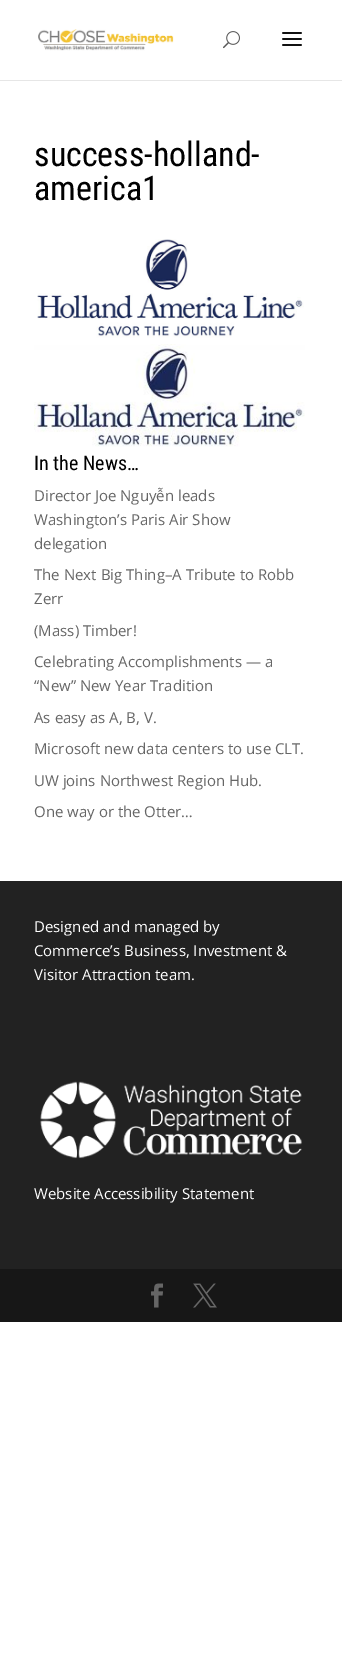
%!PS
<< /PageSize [342 1665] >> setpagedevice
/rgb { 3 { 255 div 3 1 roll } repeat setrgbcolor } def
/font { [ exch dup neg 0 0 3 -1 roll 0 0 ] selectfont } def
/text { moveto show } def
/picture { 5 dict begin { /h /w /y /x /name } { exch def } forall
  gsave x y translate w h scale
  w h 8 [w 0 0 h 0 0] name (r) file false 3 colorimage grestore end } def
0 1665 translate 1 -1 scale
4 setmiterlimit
255 255 255 rgb
0 0 342 1665 rectfill
230 230 230 rgb
0 80 342 1 rectfill
(img_01.rgb) 38 29 136 22 picture
(img_02.rgb) 223 31 17 18 picture
(img_03.rgb) 282 32 20 14 picture
(img_04.rgb) 37 239 267 99 picture
(img_05.rgb) 34 344 271 103 picture
34 34 34 rgb
0 881 342 388 rectfill
(img_06.rgb) 40 1081 262 78 picture
23 23 23 rgb
0 1269 342 53 rectfill
(img_07.rgb) 151 1283 12 25 picture
(img_08.rgb) 193 1283 24 25 picture
/RobotoCondensed-Regular 34 font
0 0 0 rgb
(success-holland-) 34 166 text
(america1) 34 200 text
/RobotoCondensed-Regular 20 font
(In the News…) 34 470 text
/OpenSans-Regular 15 font
102 102 102 rgb
(Director Joe Nguyễn leads) 34 501 text
(Washington’s Paris Air Show) 34 525 text
(delegation) 34 549 text
(The Next Big Thing–A Tribute to Robb) 34 580 text
(Zerr) 34 604 text
(\(Mass\) Timber!) 34 636 text
(Celebrating Accomplishments — a) 34 667 text
(“New” New Year Tradition) 34 691 text
(As easy as A, B, V.) 34 723 text
(Microsoft new data centers to use CLT.) 34 754 text
(UW joins Northwest Region Hub.) 34 786 text
(One way or the Otter…) 34 817 text
255 255 255 rgb
(Designed and managed by) 34 932 text
(Commerce’s Business, Investment &) 34 956 text
(Visitor Attraction team.) 34 980 text
(Website Accessibility Statement) 34 1199 text
showpage
